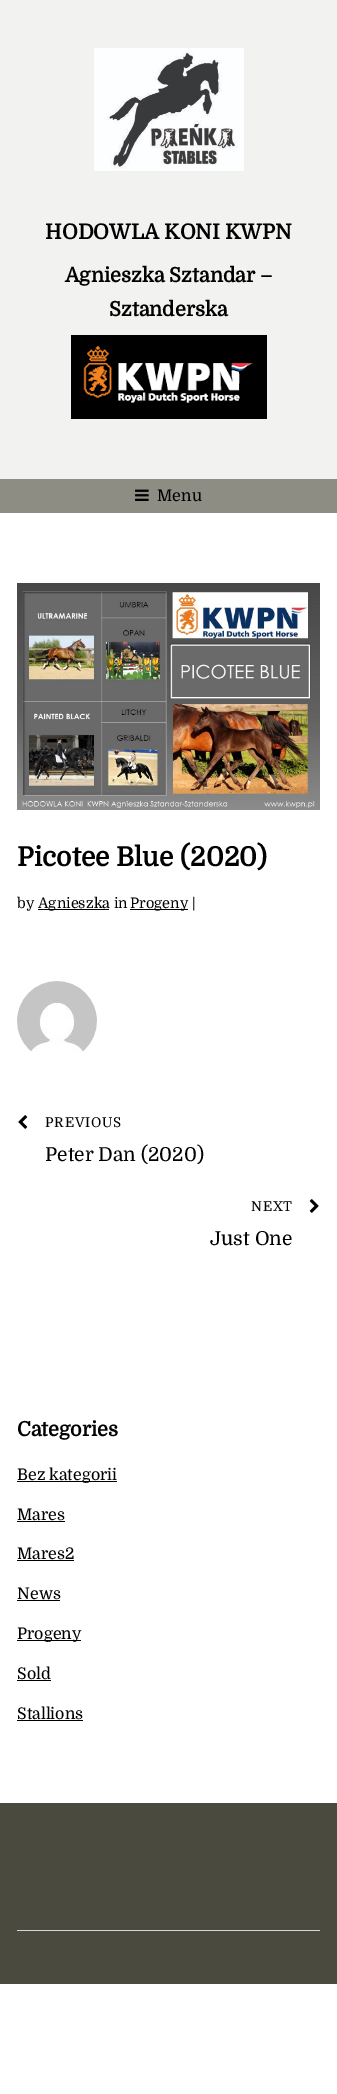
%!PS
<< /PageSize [337 2094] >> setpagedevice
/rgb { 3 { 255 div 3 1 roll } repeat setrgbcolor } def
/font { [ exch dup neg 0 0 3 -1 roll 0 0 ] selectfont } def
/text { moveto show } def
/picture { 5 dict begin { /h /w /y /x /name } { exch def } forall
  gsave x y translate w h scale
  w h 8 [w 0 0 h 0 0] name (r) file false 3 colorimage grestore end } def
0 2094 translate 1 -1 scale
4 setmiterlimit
255 255 255 rgb
0 0 337 2094 rectfill
242 242 241 rgb
0 0 337 479 rectfill
(img_01.rgb) 94 48 150 123 picture
(img_02.rgb) 71 335 196 84 picture
141 141 132 rgb
0 479 337 34 rectfill
(img_03.rgb) 135 489 14 12 picture
(img_04.rgb) 17 583 303 227 picture
0 0 0 rgb
38 909 71 1 rectfill
130 909 58 1 rectfill
(img_05.rgb) 17 981 80 71 picture
(img_06.rgb) 18 1115 10 14 picture
(img_07.rgb) 309 1199 10 14 picture
17 1481 100 1 rectfill
17 1521 48 1 rectfill
17 1560 57 1 rectfill
17 1600 43 1 rectfill
17 1640 64 1 rectfill
17 1680 34 1 rectfill
17 1720 66 1 rectfill
74 74 62 rgb
0 1803 337 181 rectfill
214 214 214 rgb
17 1930 303 1 rectfill
/Domine-Bold 20.75 font
0 0 0 rgb
(HODOWLA KONI KWPN) 45 239 text
/Domine-Bold 20 font
(Agnieszka Sztandar –) 65 282 text
(Sztanderska) 109 316 text
/Domine-Regular 16 font
(Menu) 157 501 text
/Domine-Bold 26.5 font
(Picotee Blue \(2020\)) 17 866 text
/Domine-Regular 14.5 font
(by) 17 908 text
(Agnieszka in) 38 908 text
(Progeny |) 130 908 text
/Domine-Regular 13.5 font
45 1127 moveto 0.75 0 (PREVIOUS) ashow
/Domine-Regular 19.25 font
(Peter Dan \(2020\)) 45 1161 text
/Domine-Regular 13.5 font
251 1211 moveto 0.75 0 (NEXT) ashow
/Domine-Regular 19.25 font
(Just One) 210 1245 text
/Domine-Bold 20 font
(Categories) 17 1436 text
/Domine-Regular 16 font
(Bez kategorii) 17 1480 text
(Mares) 17 1520 text
(Mares2) 17 1559 text
(News) 17 1599 text
(Progeny) 17 1639 text
(Sold) 17 1679 text
(Stallions) 17 1719 text
showpage
